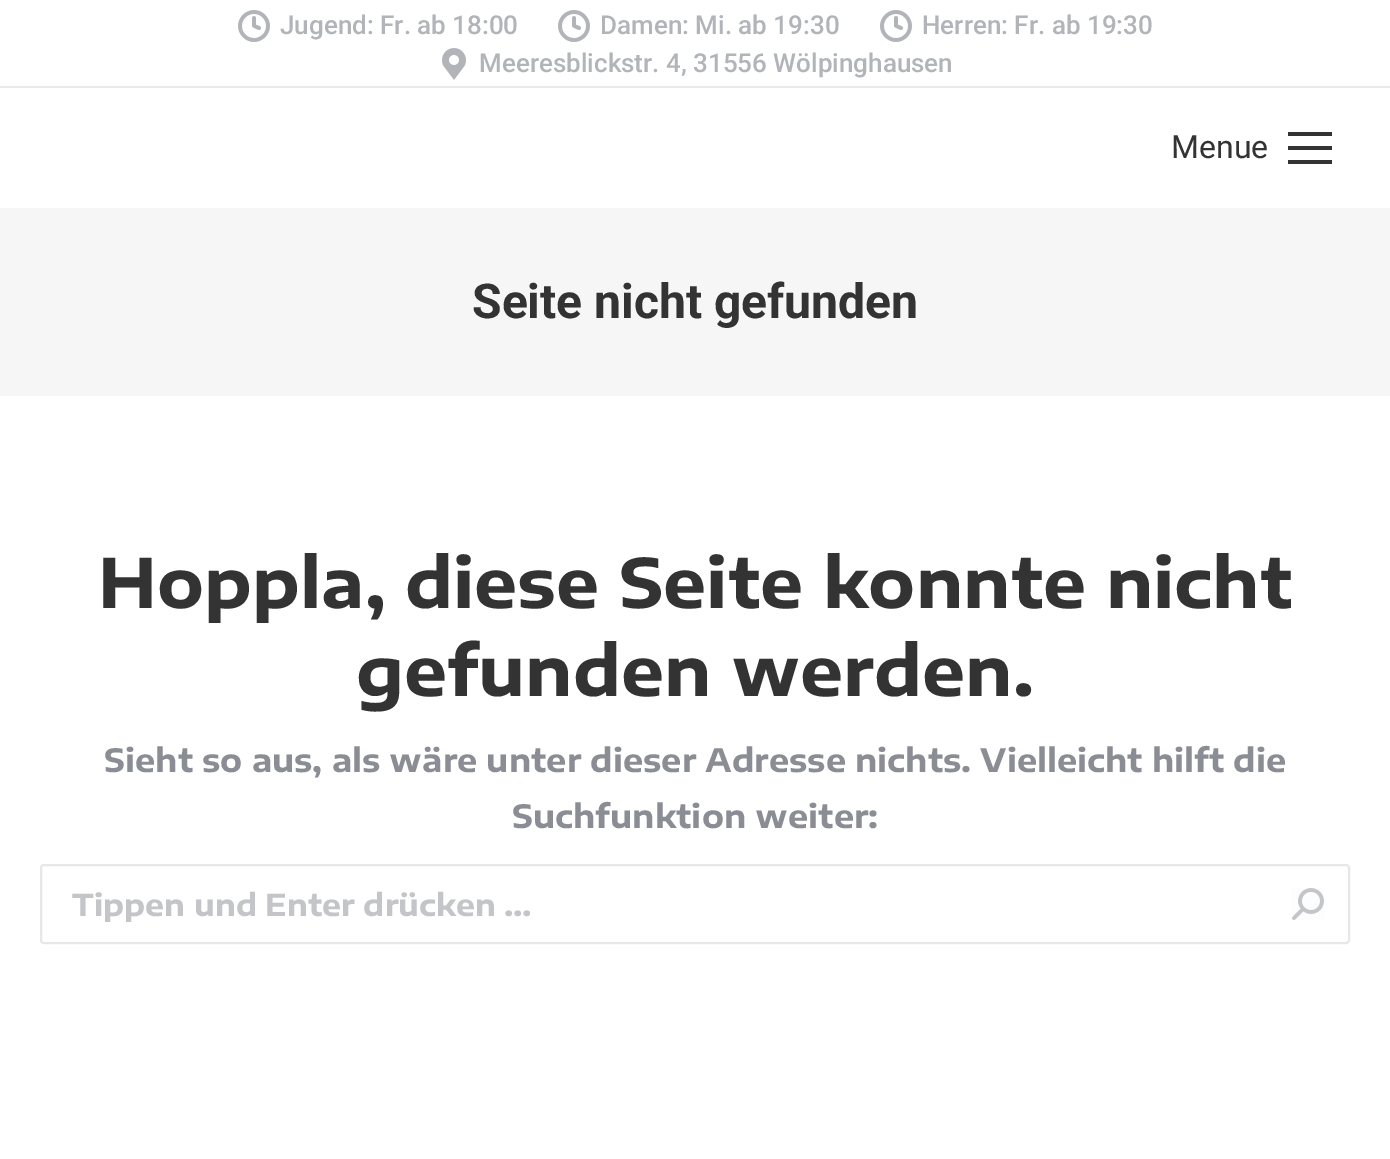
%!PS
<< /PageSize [1390 1159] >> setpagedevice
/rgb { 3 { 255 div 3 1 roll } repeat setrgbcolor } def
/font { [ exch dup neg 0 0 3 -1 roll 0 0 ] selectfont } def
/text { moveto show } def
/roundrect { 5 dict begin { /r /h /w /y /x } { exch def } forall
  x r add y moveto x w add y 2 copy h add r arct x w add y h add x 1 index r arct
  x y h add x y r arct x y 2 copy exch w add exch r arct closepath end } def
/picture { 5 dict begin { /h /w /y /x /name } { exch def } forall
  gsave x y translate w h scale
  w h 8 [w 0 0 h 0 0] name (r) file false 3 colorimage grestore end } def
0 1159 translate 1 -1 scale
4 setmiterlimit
255 255 255 rgb
0 0 1390 1159 rectfill
(img_01.rgb) 238 10 32 32 picture
(img_01.rgb) 558 10 32 32 picture
(img_01.rgb) 880 10 32 32 picture
(img_02.rgb) 442 48 24 32 picture
233 233 233 rgb
0 86 1390 2 rectfill
51 51 51 rgb
1288 132 44 4 rectfill
1288 146 44 4 rectfill
1288 160 44 4 rectfill
246 246 246 rgb
0 208 1390 188 rectfill
231 231 231 rgb
2 setlinewidth
41 865 1308 78 3 roundrect stroke
(img_03.rgb) 1292 888 32 32 picture
/Roboto-Medium 26 font
177 180 184 rgb
(Jugend: Fr. ab 18:00) 280 34 text
(Damen: Mi. ab 19:30) 600 34 text
(Herren: Fr. ab 19:30) 922 34 text
(Meeresblickstr. 4, 31556 Wölpinghausen) 479 72 text
/Roboto-Regular 32 font
51 51 51 rgb
(Menue) 1171 158 text
/Roboto-Bold 48 font
(Seite nicht gefunden) 472 318 text
/EncodeSansExpanded-Bold 68 font
(Hoppla, diese Seite konnte nicht) 98 608 text
(gefunden werden.) 356 696 text
/EncodeSansExpanded-Bold 32 font
139 141 148 rgb
(Sieht so aus, als wäre unter dieser Adresse nichts. Vielleicht hilft die) 104 772 text
(Suchfunktion weiter:) 512 828 text
gsave
72 886 1216 36 rectclip
/EncodeSansExpanded-Bold 30 font
196 197 201 rgb
(Tippen und Enter drücken …) 72 916 text
grestore
showpage
